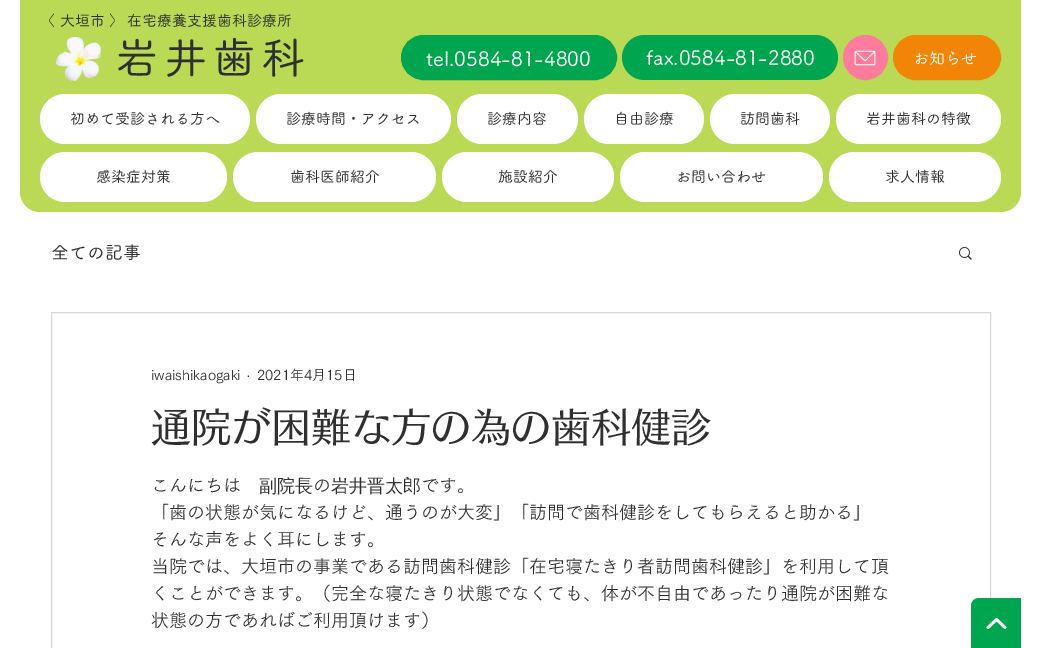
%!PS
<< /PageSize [1041 648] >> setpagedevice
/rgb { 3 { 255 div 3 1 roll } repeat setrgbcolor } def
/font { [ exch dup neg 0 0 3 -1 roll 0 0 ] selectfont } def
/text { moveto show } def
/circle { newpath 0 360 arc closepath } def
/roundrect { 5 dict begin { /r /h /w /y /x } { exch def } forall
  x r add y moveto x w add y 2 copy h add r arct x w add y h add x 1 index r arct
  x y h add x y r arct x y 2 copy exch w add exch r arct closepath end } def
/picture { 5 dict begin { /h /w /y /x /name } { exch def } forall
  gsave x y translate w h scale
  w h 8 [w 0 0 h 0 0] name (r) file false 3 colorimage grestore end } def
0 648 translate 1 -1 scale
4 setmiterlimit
255 255 255 rgb
0 0 1041 648 rectfill
186 218 85 rgb
20 0 1001 94 rectfill
(img_01.rgb) 56 37 45 44 picture
0 165 80 rgb
401.5 35.5 215 44 22 roundrect gsave fill grestore
stroke
622 35 216 45 22.5 roundrect fill
255 123 156 rgb
865.5 57.5 22 circle gsave fill grestore
stroke
(img_02.rgb) 854 50 22 16 picture
242 132 7 rgb
893.5 35.5 107 44 22 roundrect gsave fill grestore
stroke
186 218 85 rgb
20 94 moveto 1001 0 rlineto 0 98 rlineto 0 11 -9 20 -20 20 rcurveto -961 0 rlineto -11 0 -20 -9 -20 -20 rcurveto closepath fill
255 255 255 rgb
40 94 210 50 25 roundrect fill
256 94 195 50 25 roundrect fill
457 94 121 50 25 roundrect fill
584 94 120 50 25 roundrect fill
710 94 120 50 25 roundrect fill
836 94 165 50 25 roundrect fill
40 152 187 50 25 roundrect fill
233 152 203 50 25 roundrect fill
442 152 172 50 25 roundrect fill
620 152 203 50 25 roundrect fill
829 152 172 50 25 roundrect fill
(img_03.rgb) 959 247 13 13 picture
216 216 216 rgb
51.5 312.5 939 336 rectstroke
0 165 80 rgb
979 598 moveto 42 0 rlineto 0 50 rlineto -50 0 rlineto 0 -42 rlineto 0 -4.5 3.5 -8 8 -8 rcurveto closepath fill
(img_04.rgb) 986 617 21 12 picture
/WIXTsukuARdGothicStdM-Medium 15 font
47 47 47 rgb
(〈 大垣市 〉) 40 26 text
(在宅療養支援歯科診療所) 127 26 text
/WIXTsukuARdGothicStdM-Medium 44 font
115 74 moveto 4.5 0 (岩井歯) ashow
(科) 261 74 text
/WIXTsukuARdGothicStdM-Medium 20 font
255 255 255 rgb
(tel.0584-81-4800) 426 66 text
(fax.0584-81-2880) 646 65 text
/WIXTsukuARdGothicStdM-Medium 16 font
(お知らせ) 913 64 text
/WIXTsukuARdGothicStdM-Medium 15 font
47 47 47 rgb
(初めて受診される方へ) 70 124 text
(診療時間・アクセス) 286 124 text
(診療内容) 487 124 text
(自由診療) 614 124 text
(訪問歯科) 740 124 text
(岩井歯科の特徴) 866 124 text
(感染症対策) 96 182 text
(歯科医師紹介) 290 182 text
(施設紹介) 498 182 text
(お問い合わせ) 676 182 text
(求人情報) 885 182 text
/WIXTsukuARdGothicStdM-Medium 18 font
(全ての記事) 51 259 text
/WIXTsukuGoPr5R-Regular 14 font
(iwaishikaogaki) 151 380 text
/LiberationSans-Regular 14 font
(·) 246 380 text
/WIXTsukuGoPr5R-Regular 14 font
(2021年4月15日) 257 380 text
/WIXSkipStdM-Medium 40 font
(通院が困難な方の為の歯科健診) 151 442 text
/WIXTsukuGoPr5R-Regular 18 font
(こんにちは) 151 492 text
/WenQuanYiZenHei-Medium 18 font
(副院長) 259 492 text
/WIXTsukuGoPr5R-Regular 18 font
(の) 313 492 text
/WenQuanYiZenHei-Medium 18 font
(岩井晋太郎) 331 492 text
/WIXTsukuGoPr5R-Regular 18 font
(です。) 421 492 text
(「歯の状態が気になるけど、通うのが大変」「訪問で歯科健診をしてもらえると助かる」) 151 519 text
(そんな声をよく耳にします。) 151 546 text
(当院では、大垣市の事業である訪問歯科健診「在宅寝たきり者訪問歯科健診」を利用して頂) 151 573 text
(くことができます。（完全な寝たきり状態でなくても、体が不自由であったり通院が困難な) 151 600 text
(状態の方であればご利用頂けます）) 151 627 text
showpage
